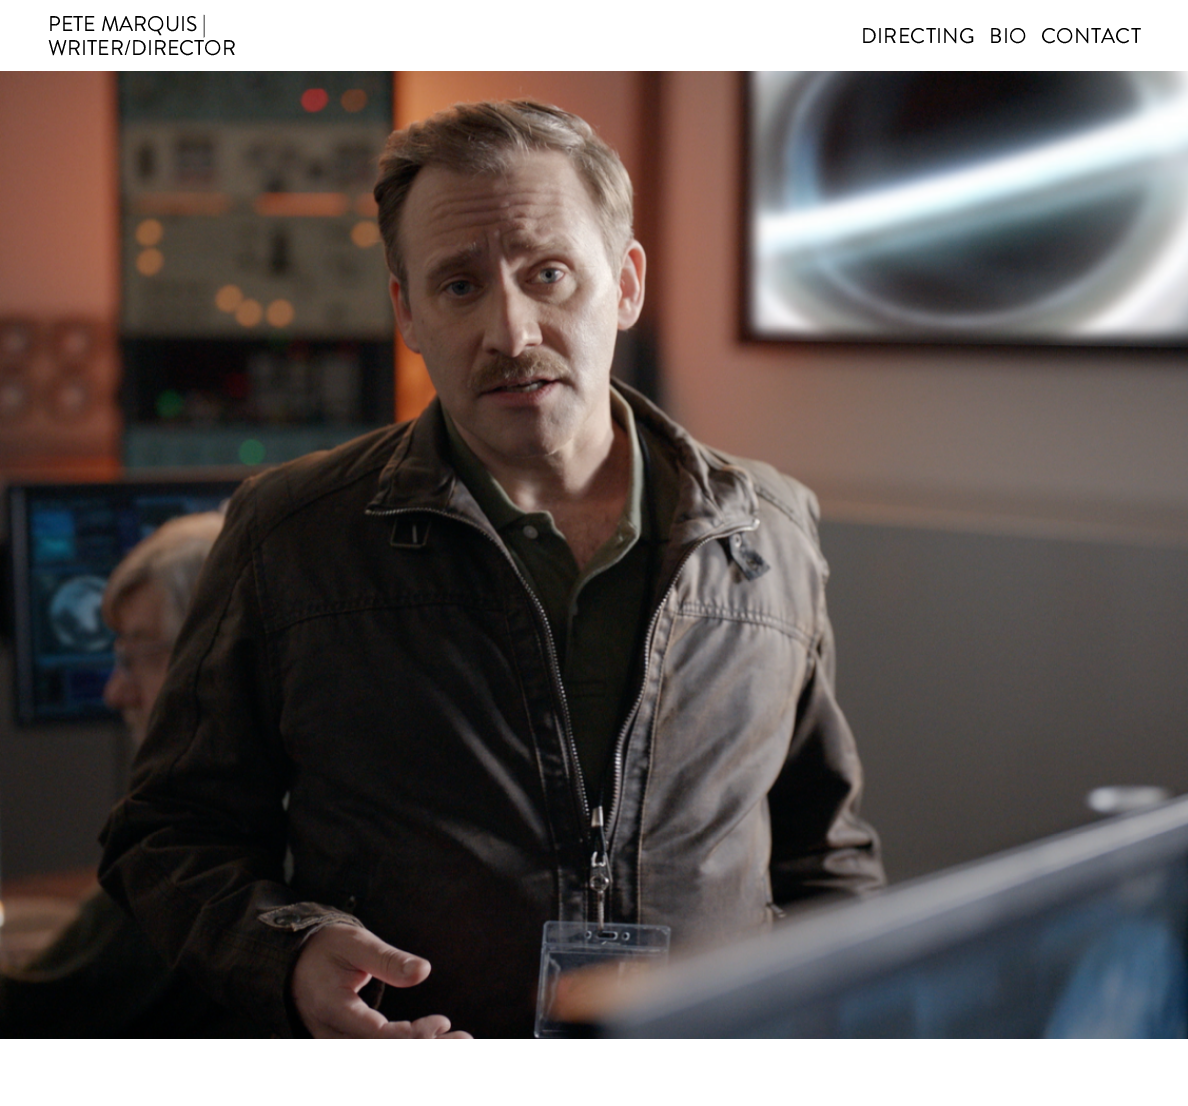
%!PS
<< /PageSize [1188 1106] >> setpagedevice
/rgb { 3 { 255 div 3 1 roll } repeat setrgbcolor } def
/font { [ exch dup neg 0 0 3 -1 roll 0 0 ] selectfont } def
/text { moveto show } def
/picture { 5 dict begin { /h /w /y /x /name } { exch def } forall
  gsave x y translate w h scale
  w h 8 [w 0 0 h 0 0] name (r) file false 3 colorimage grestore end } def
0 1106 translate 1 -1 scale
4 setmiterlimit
255 255 255 rgb
0 0 1188 1106 rectfill
(img_01.rgb) 0 71 1188 968 picture
/BrandonGrotesque-Regular 21.25 font
0 0 0 rgb
(PETE MARQUIS |) 48 31 text
(WRITER/DIRECTOR) 48 55 text
861 43 moveto 0.25 0 (DIRECTING) ashow
989 43 moveto 0.25 0 (BIO) ashow
1041 43 moveto 0.25 0 (CONTACT) ashow
showpage
